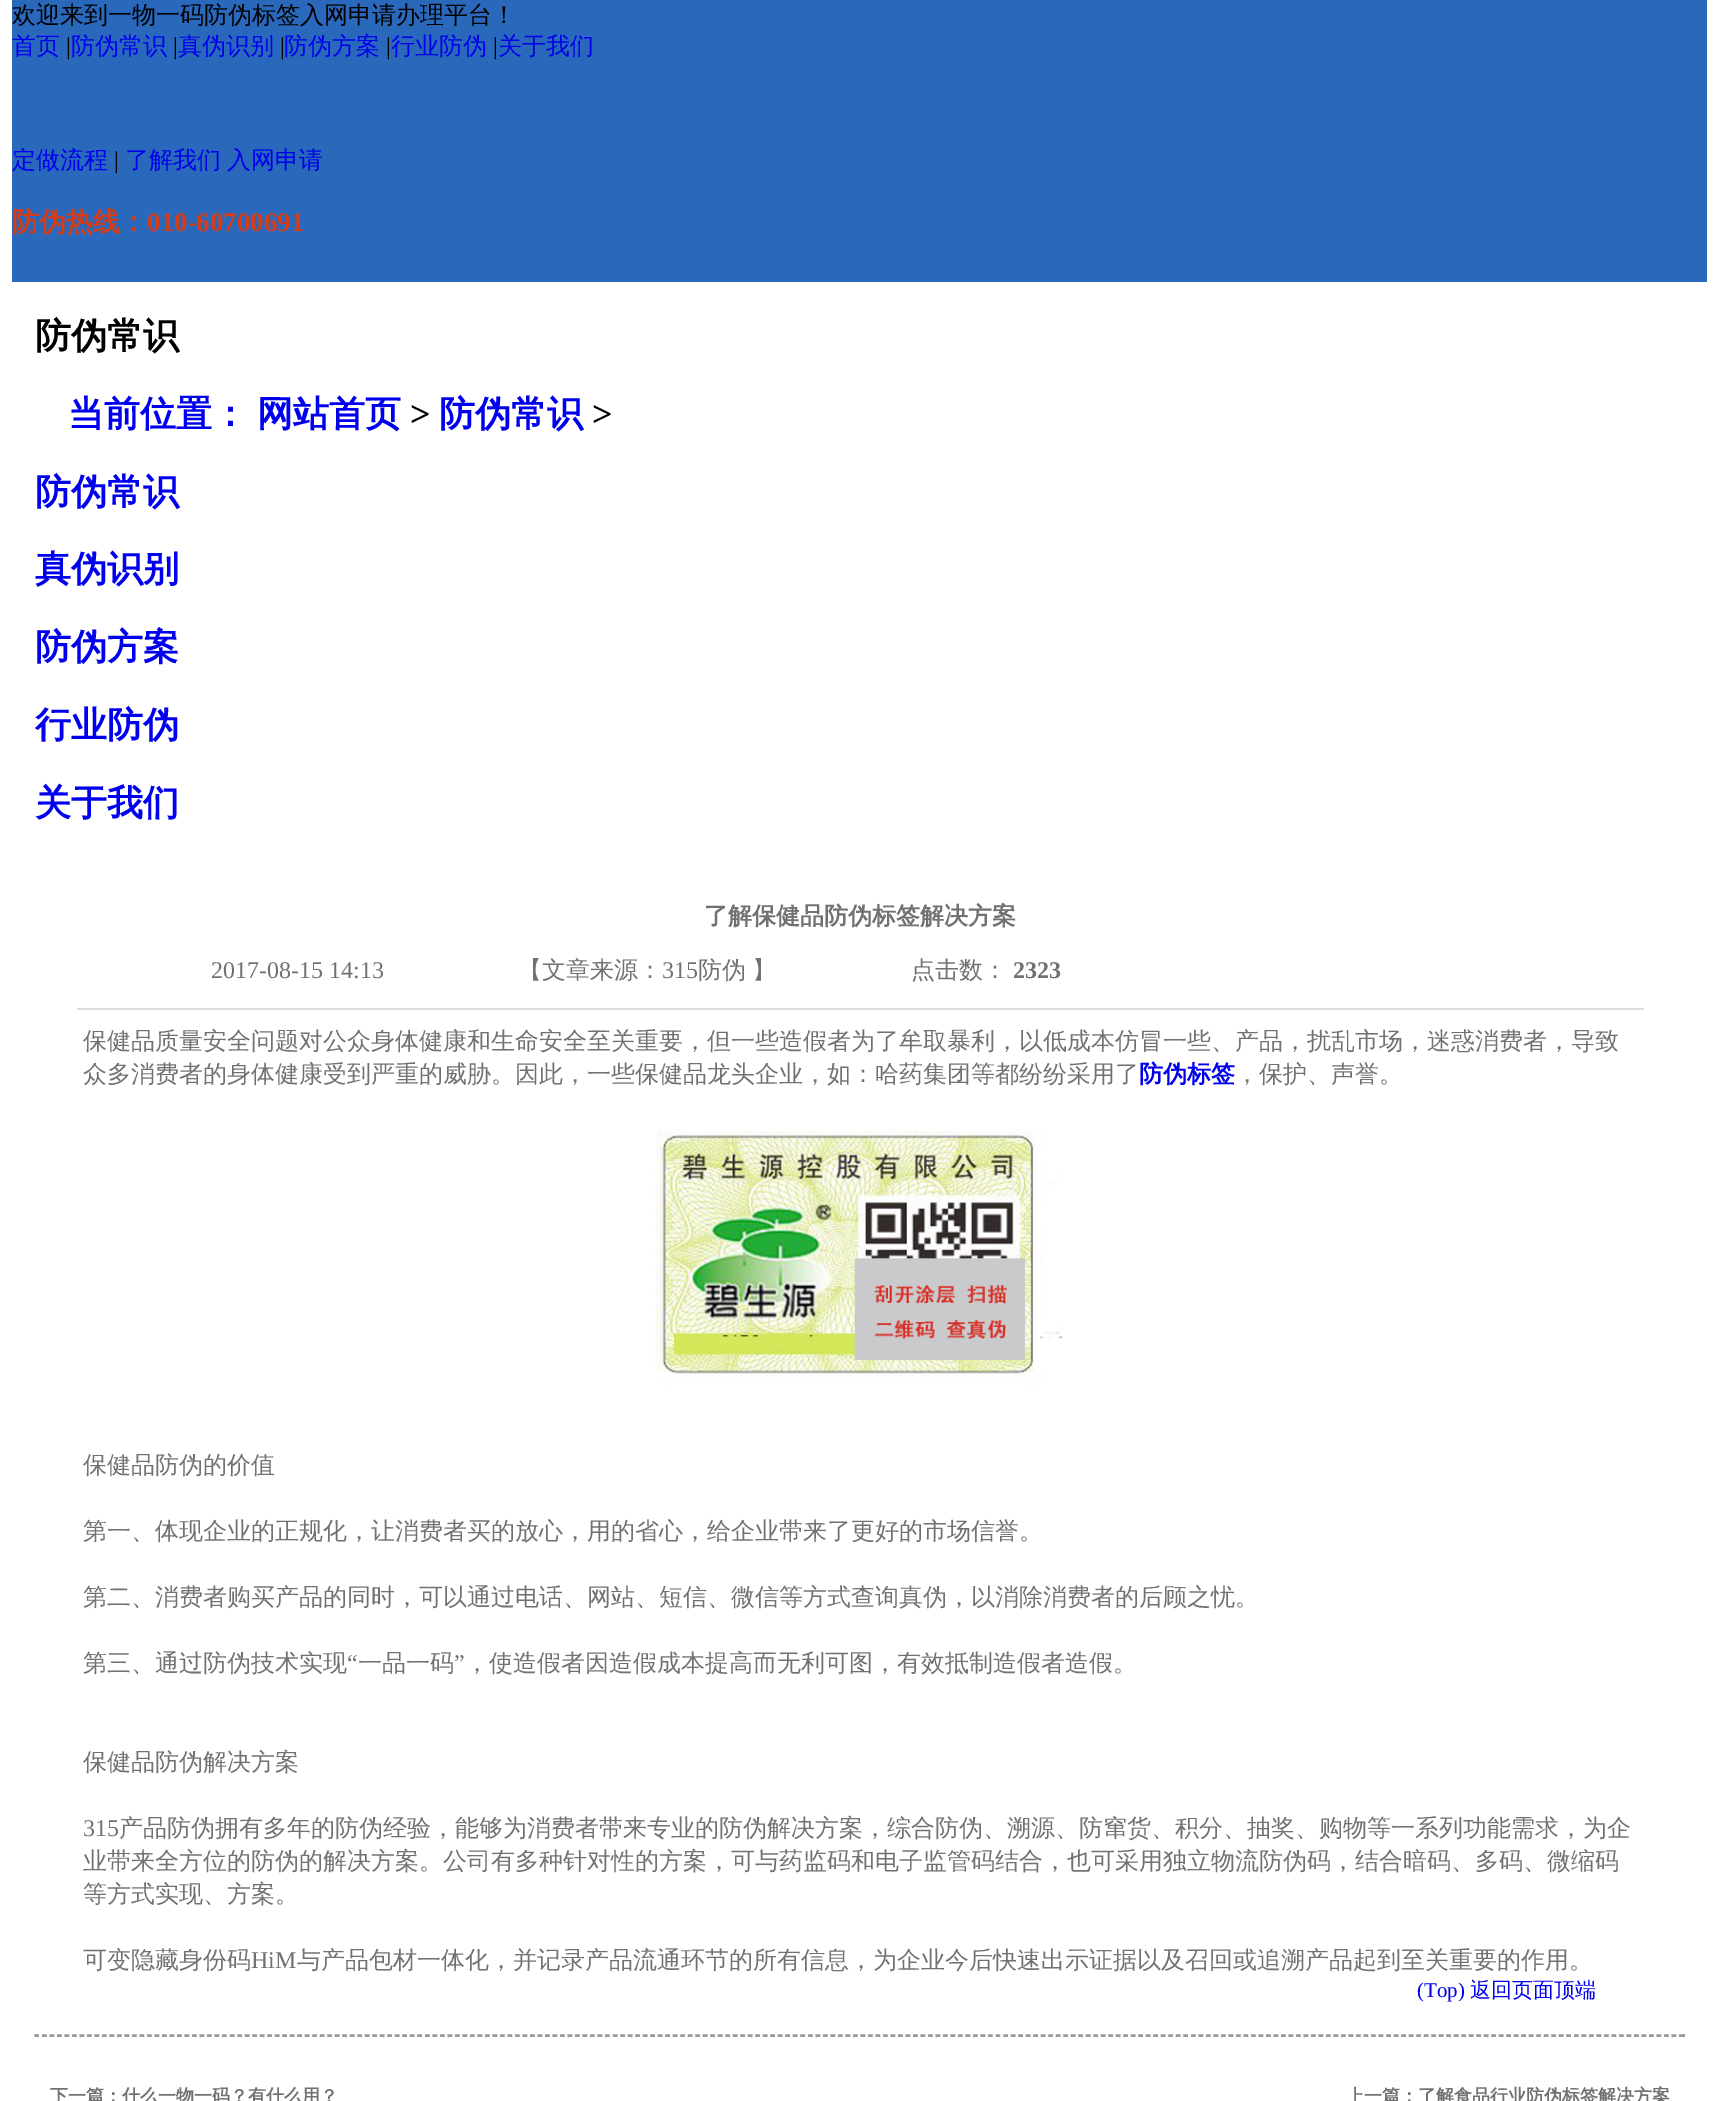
%!PS
<< /PageSize [1718 2101] >> setpagedevice
/rgb { 3 { 255 div 3 1 roll } repeat setrgbcolor } def
/font { [ exch dup neg 0 0 3 -1 roll 0 0 ] selectfont } def
/text { moveto show } def
/picture { 5 dict begin { /h /w /y /x /name } { exch def } forall
  gsave x y translate w h scale
  w h 8 [w 0 0 h 0 0] name (r) file false 3 colorimage grestore end } def
0 2101 translate 1 -1 scale
4 setmiterlimit
255 255 255 rgb
0 0 1718 2101 rectfill
42 104 187 rgb
12 0 1695 282 rectfill
221 221 221 rgb
77 1008 1567 2 rectfill
(img_01.rgb) 655 1128 408 257 picture
153 153 153 rgb
1.5 setlinewidth
[4.5 3.01] 0 setdash
34.5 2035 moveto 1650 0 rlineto stroke
1683 2034 2 3 rectfill
34.5 2036 moveto 1650 0 rlineto stroke
35 2034 2 3 rectfill
/WenQuanYiZenHei-Medium 24 font
0 0 0 rgb
(欢迎来到一物一码防伪标签入网申请办理平台！) 12 23 text
0 0 238 rgb
(首页) 12 54 text
/LiberationSerif-Regular 24 font
0 0 0 rgb
(|) 66 54 text
/WenQuanYiZenHei-Medium 24 font
0 0 238 rgb
(防伪常识) 71 54 text
/LiberationSerif-Regular 24 font
0 0 0 rgb
(|) 173 54 text
/WenQuanYiZenHei-Medium 24 font
0 0 238 rgb
(真伪识别) 178 54 text
/LiberationSerif-Regular 24 font
0 0 0 rgb
(|) 280 54 text
/WenQuanYiZenHei-Medium 24 font
0 0 238 rgb
(防伪方案) 284 54 text
/LiberationSerif-Regular 24 font
0 0 0 rgb
(|) 386 54 text
/WenQuanYiZenHei-Medium 24 font
0 0 238 rgb
(行业防伪) 391 54 text
/LiberationSerif-Regular 24 font
0 0 0 rgb
(|) 493 54 text
/WenQuanYiZenHei-Medium 24 font
0 0 238 rgb
(关于我们) 498 54 text
(定做流程) 12 168 text
/LiberationSerif-Regular 24 font
0 0 0 rgb
(|) 114 168 text
/WenQuanYiZenHei-Medium 24 font
0 0 238 rgb
(了解我们) 125 168 text
(入网申请) 227 168 text
/WenQuanYiZenHei-Bold 27 font
216 60 20 rgb
(防伪热线：) 12 231 text
/LiberationSerif-Bold 27 font
(010-60700691) 147 231 text
/WenQuanYiZenHei-Bold 36 font
0 0 0 rgb
(防伪常识) 35 348 text
0 0 238 rgb
(当前位置：) 68 426 text
(网站首页) 257 426 text
/LiberationSerif-Bold 36 font
0 0 0 rgb
(>) 410 426 text
/WenQuanYiZenHei-Bold 36 font
0 0 238 rgb
(防伪常识) 439 426 text
/LiberationSerif-Bold 36 font
0 0 0 rgb
(>) 592 426 text
/WenQuanYiZenHei-Bold 36 font
0 0 238 rgb
(防伪常识) 35 504 text
(真伪识别) 35 581 text
(防伪方案) 35 659 text
(行业防伪) 35 737 text
(关于我们) 35 815 text
/WenQuanYiZenHei-Bold 24 font
113 113 113 rgb
(了解保健品防伪标签解决方案) 704 924 text
/LiberationSerif-Regular 24 font
(2017-08-15 14:13) 211 978 text
/WenQuanYiZenHei-Medium 24 font
(【文章来源：) 518 978 text
/LiberationSerif-Regular 24 font
(315) 662 978 text
/WenQuanYiZenHei-Medium 24 font
(防伪) 698 978 text
(】) 752 978 text
(点击数：) 911 978 text
/LiberationSerif-Bold 24 font
(2323) 1013 978 text
/WenQuanYiZenHei-Medium 24 font
(保健品质量安全问题对公众身体健康和生命安全至关重要，但一些造假者为了牟取暴利，以低成本仿冒一些、产品，扰乱市场，迷惑消费者，导致) 83 1049 text
(众多消费者的身体健康受到严重的威胁。因此，一些保健品龙头企业，如：哈药集团等都纷纷采用了) 83 1082 text
/WenQuanYiZenHei-Bold 24 font
0 0 238 rgb
(防伪标签) 1139 1082 text
/WenQuanYiZenHei-Medium 24 font
113 113 113 rgb
(，保护、声誉。) 1235 1082 text
(保健品防伪的价值) 83 1473 text
(第一、体现企业的正规化，让消费者买的放心，用的省心，给企业带来了更好的市场信誉。) 83 1539 text
(第二、消费者购买产品的同时，可以通过电话、网站、短信、微信等方式查询真伪，以消除消费者的后顾之忧。) 83 1605 text
(第三、通过防伪技术实现) 83 1671 text
/LiberationSerif-Regular 24 font
(“) 347 1671 text
/WenQuanYiZenHei-Medium 24 font
(一品一码) 358 1671 text
/LiberationSerif-Regular 24 font
(”) 454 1671 text
/WenQuanYiZenHei-Medium 24 font
(，使造假者因造假成本提高而无利可图，有效抵制造假者造假。) 465 1671 text
(保健品防伪解决方案) 83 1770 text
/LiberationSerif-Regular 24 font
(315) 83 1836 text
/WenQuanYiZenHei-Medium 24 font
(产品防伪拥有多年的防伪经验，能够为消费者带来专业的防伪解决方案，综合防伪、溯源、防窜货、积分、抽奖、购物等一系列功能需求，为企) 119 1836 text
(业带来全方位的防伪的解决方案。公司有多种针对性的方案，可与药监码和电子监管码结合，也可采用独立物流防伪码，结合暗码、多码、微缩码) 83 1869 text
(等方式实现、方案。) 83 1902 text
(可变隐藏身份码) 83 1968 text
/LiberationSerif-Regular 24 font
(HiM) 251 1968 text
/WenQuanYiZenHei-Medium 24 font
(与产品包材一体化，并记录产品流通环节的所有信息，为企业今后快速出示证据以及召回或追溯产品起到至关重要的作用。) 297 1968 text
/LiberationSerif-Regular 21 font
0 0 238 rgb
(\(Top\)) 1417 1997 text
/WenQuanYiZenHei-Medium 21 font
(返回页面顶端) 1470 1997 text
/WenQuanYiZenHei-Bold 18 font
113 113 113 rgb
(下一篇：什么一物一码？有什么用？) 50 2102 text
(上一篇：了解食品行业防伪标签解决方案) 1346 2102 text
showpage
